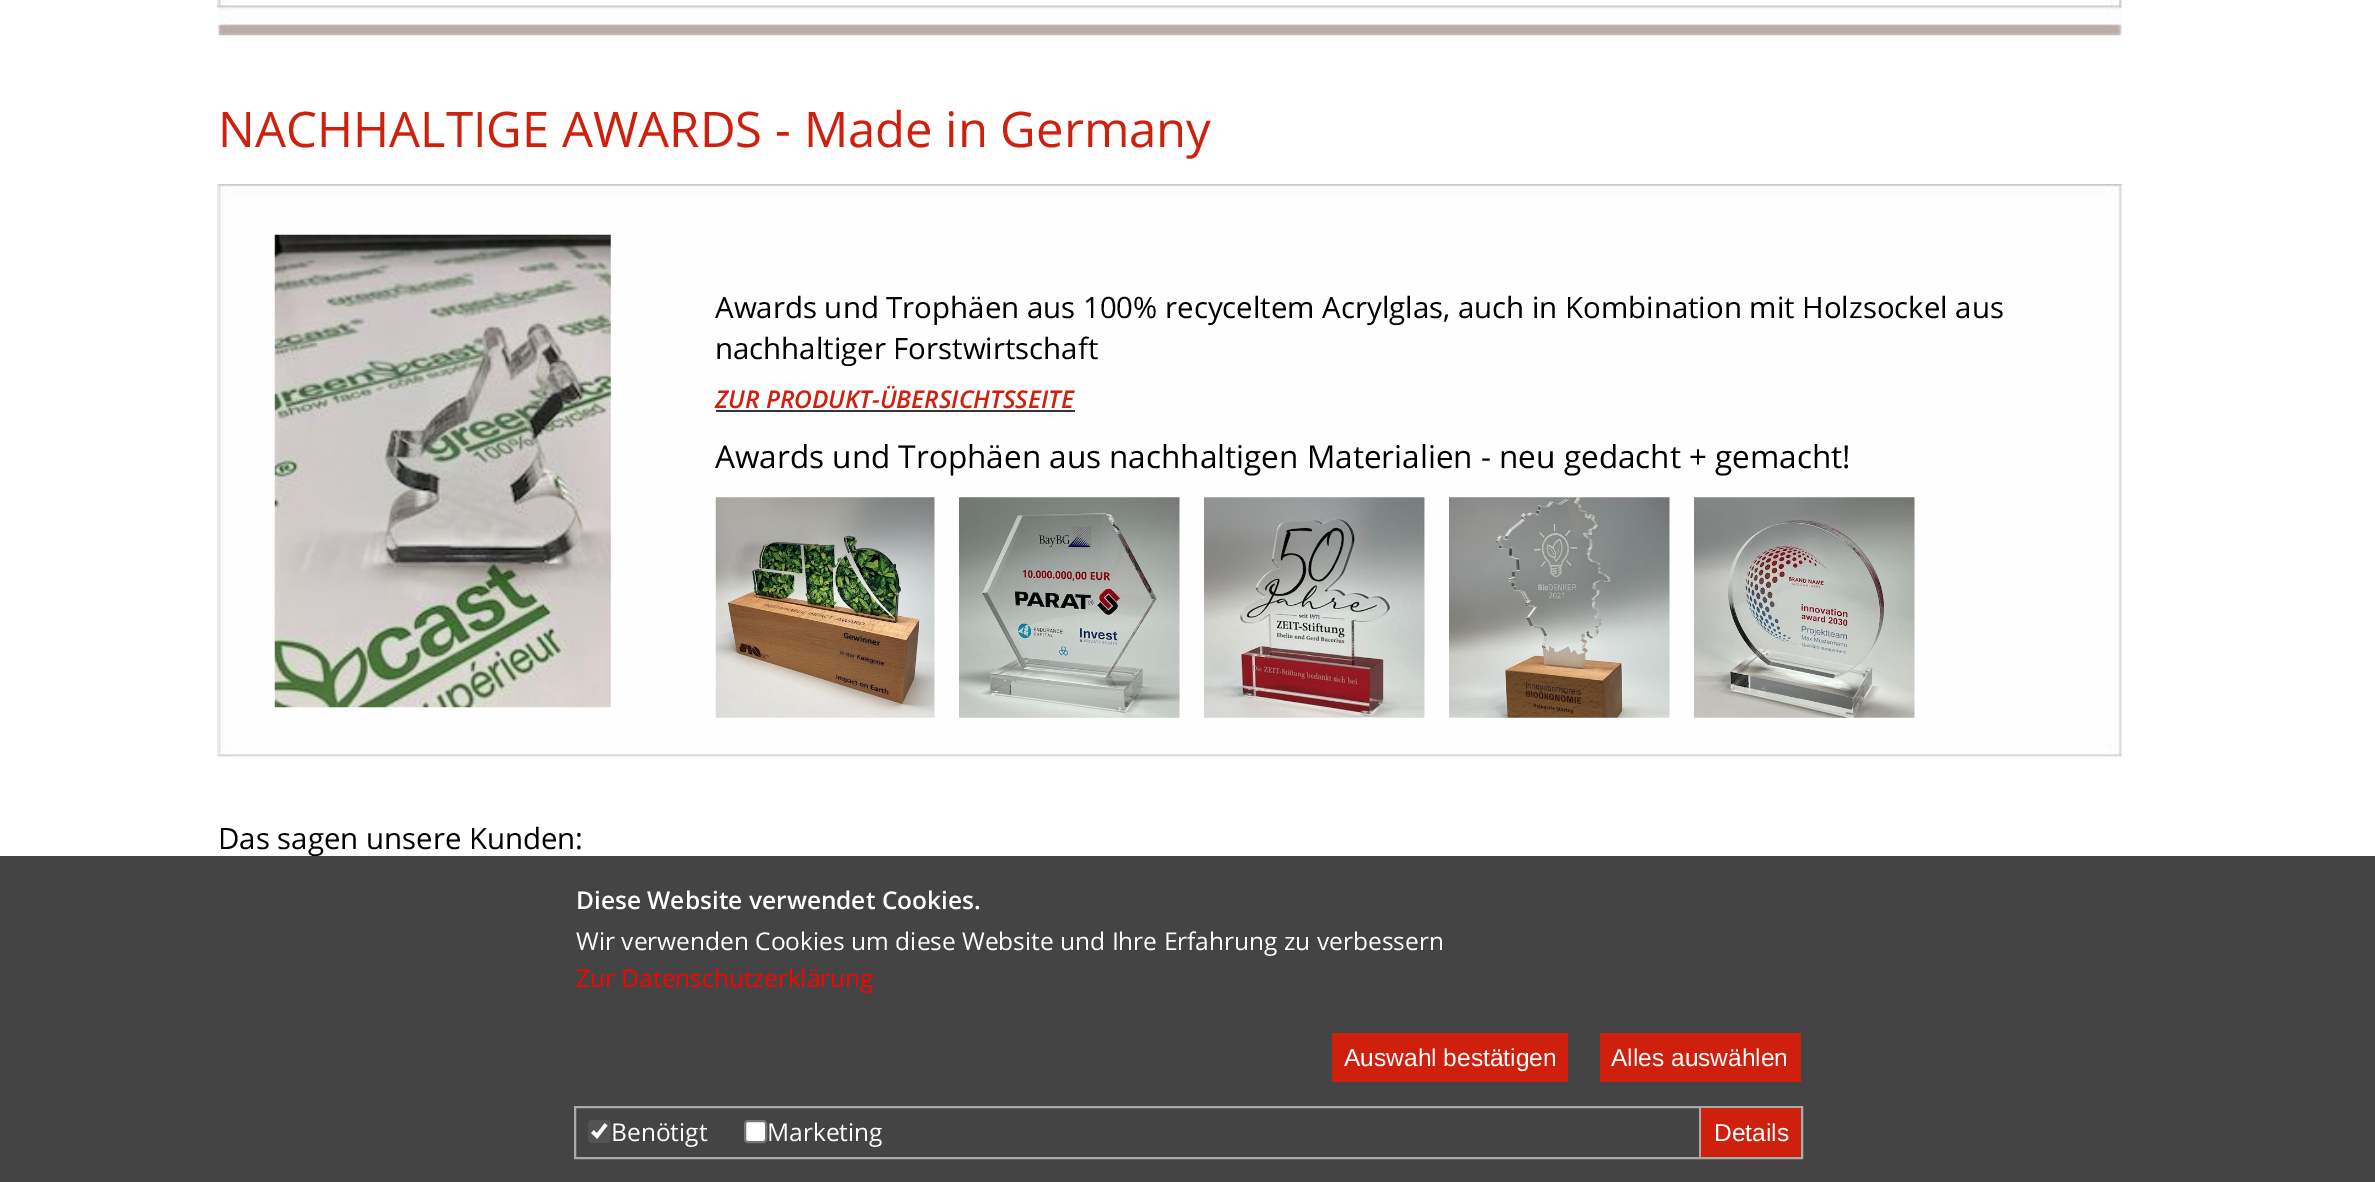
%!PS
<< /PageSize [2375 1182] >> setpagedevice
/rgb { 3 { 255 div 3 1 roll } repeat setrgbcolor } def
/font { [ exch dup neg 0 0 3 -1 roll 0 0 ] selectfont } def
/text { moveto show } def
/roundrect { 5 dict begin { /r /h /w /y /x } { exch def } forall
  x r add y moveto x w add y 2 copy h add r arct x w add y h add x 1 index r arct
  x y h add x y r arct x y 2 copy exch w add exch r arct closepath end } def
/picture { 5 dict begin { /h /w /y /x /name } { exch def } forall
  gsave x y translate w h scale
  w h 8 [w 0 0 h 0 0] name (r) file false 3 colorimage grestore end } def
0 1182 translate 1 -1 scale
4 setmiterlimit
255 255 255 rgb
0 0 2375 1182 rectfill
(img_01.rgb) 217 0 1906 36 picture
(img_02.rgb) 217 184 1906 575 picture
(img_03.rgb) 274 234 337 474 picture
53 53 53 rgb
716 410 359 2 rectfill
(img_04.rgb) 715 497 220 221 picture
(img_05.rgb) 959 497 221 221 picture
(img_06.rgb) 1204 497 221 221 picture
(img_07.rgb) 1449 497 221 221 picture
(img_08.rgb) 1694 497 221 221 picture
/OpenSans-Regular 49 font
207 31 13 rgb
(NACHHALTIGE AWARDS - Made in Germany) 218 147 text
/OpenSans-Regular 29.4 font
0 0 0 rgb
(Awards und Trophäen aus 100% recyceltem Acrylglas, auch in Kombination mit Holzsockel aus) 715 318 text
(nachhaltiger Forstwirtschaft) 715 359 text
/OpenSans-SemiBoldItalic 24.5 font
207 31 13 rgb
(ZUR PRODUKT-ÜBERSICHTSSEITE) 715 408 text
/OpenSans-Regular 31.5 font
0 0 0 rgb
(Awards und Trophäen aus nachhaltigen Materialien - neu gedacht + gemacht!) 715 468 text
/OpenSans-Regular 29.4 font
(Das sagen unsere Kunden:) 218 849 text
68 68 68 rgb
0 856 2375 326 rectfill
/OpenSans-SemiBold 24.5 font
255 255 255 rgb
(Diese Website verwendet Cookies.) 576 909 text
/OpenSans-Regular 24.5 font
(Wir verwenden Cookies um diese Website und Ihre Erfahrung zu verbessern) 576 950 text
255 0 0 rgb
(Zur Datenschutzerklärung) 576 987 text
207 31 13 rgb
1332 1033 236 49 rectfill
/LiberationSans-Regular 24.5 font
255 255 255 rgb
(Auswahl bestätigen) 1344 1066 text
207 31 13 rgb
1600 1033 201 49 rectfill
255 255 255 rgb
(Alles auswählen) 1611 1066 text
170 170 170 rgb
2 setlinewidth
575 1107 1227 51 rectstroke
83 83 83 rgb
588 1120 23 23 4 roundrect fill
255 255 255 rgb
3.6 setlinewidth
592.5 1131.5 moveto 4.5 4.5 rlineto 9 -11.5 rlineto stroke
/OpenSans-Regular 24.5 font
(Benötigt) 611 1141 text
745 1121 21 21 3 roundrect gsave fill grestore
118 118 118 rgb
2 setlinewidth
stroke
255 255 255 rgb
(Marketing) 767 1141 text
207 31 13 rgb
1701 1108 100 49 rectfill
170 170 170 rgb
1699 1108 2 49 rectfill
/LiberationSans-Regular 24.5 font
255 255 255 rgb
(Details) 1714 1141 text
showpage
